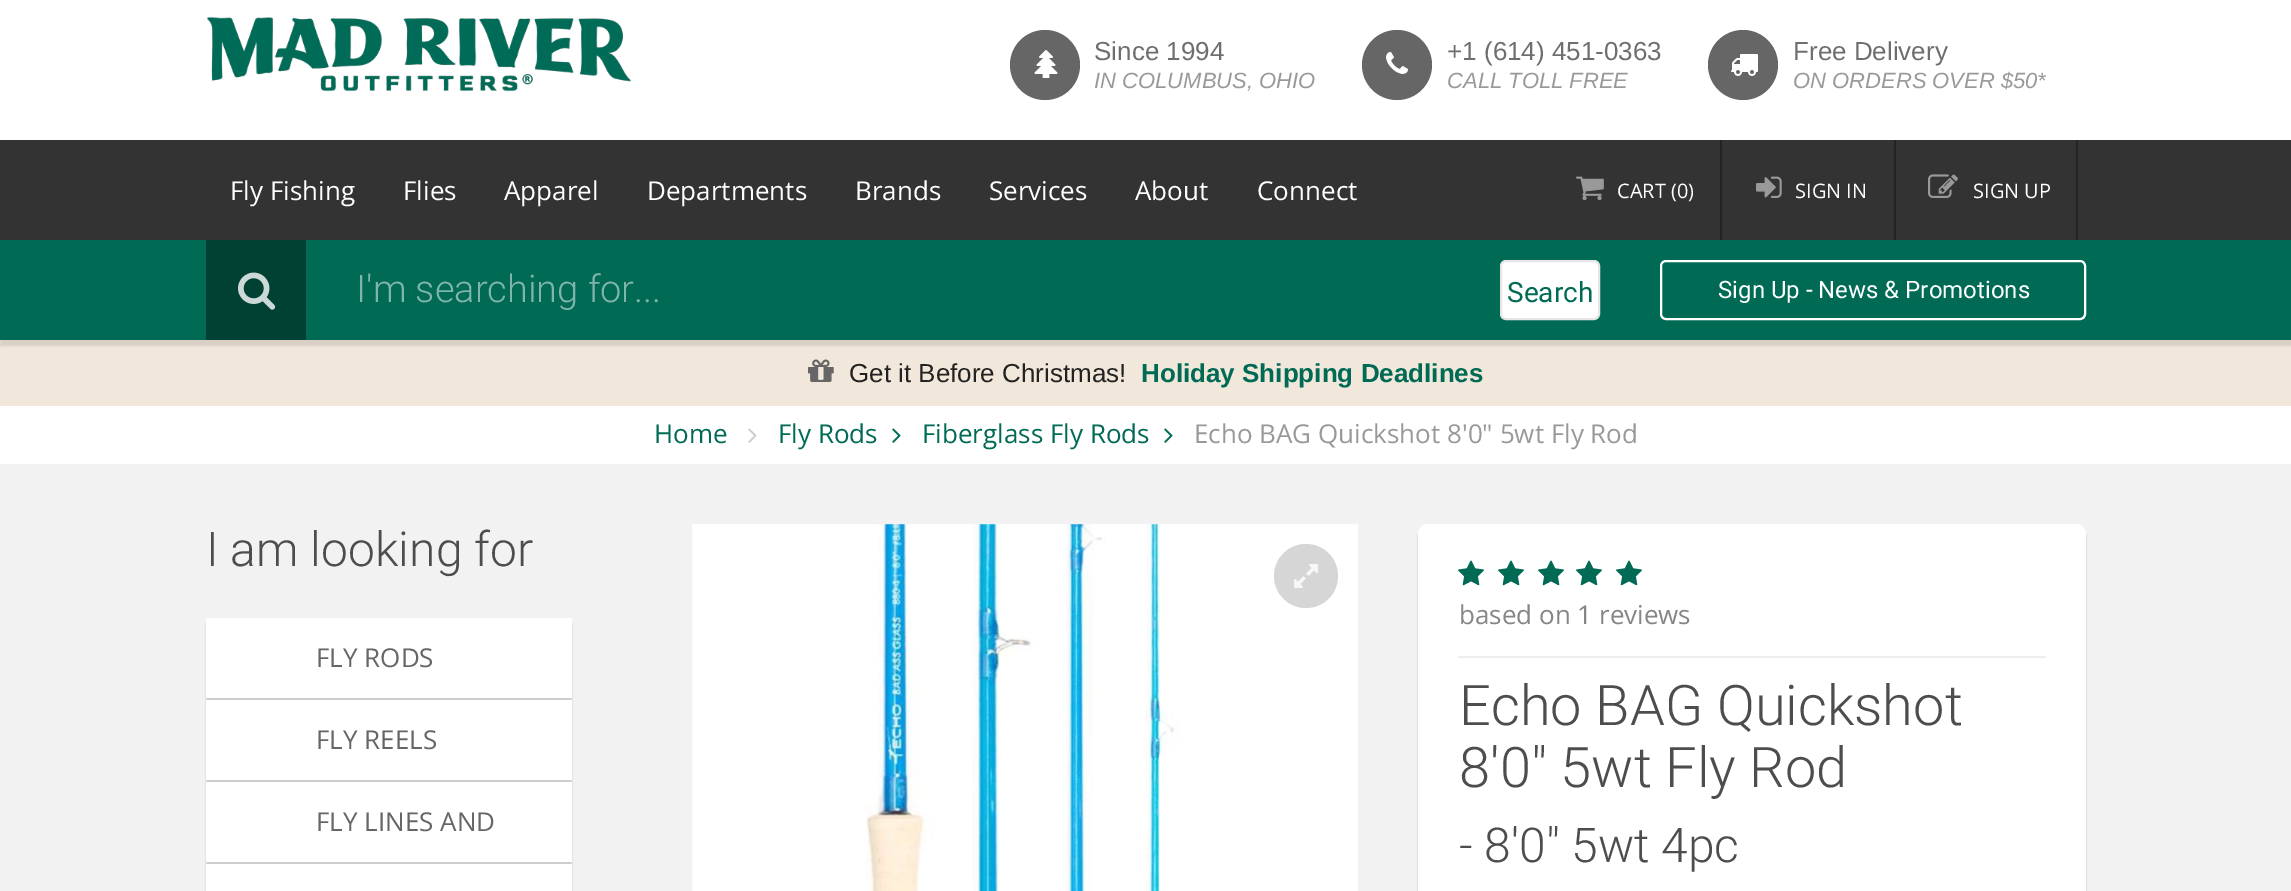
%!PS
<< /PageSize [2291 891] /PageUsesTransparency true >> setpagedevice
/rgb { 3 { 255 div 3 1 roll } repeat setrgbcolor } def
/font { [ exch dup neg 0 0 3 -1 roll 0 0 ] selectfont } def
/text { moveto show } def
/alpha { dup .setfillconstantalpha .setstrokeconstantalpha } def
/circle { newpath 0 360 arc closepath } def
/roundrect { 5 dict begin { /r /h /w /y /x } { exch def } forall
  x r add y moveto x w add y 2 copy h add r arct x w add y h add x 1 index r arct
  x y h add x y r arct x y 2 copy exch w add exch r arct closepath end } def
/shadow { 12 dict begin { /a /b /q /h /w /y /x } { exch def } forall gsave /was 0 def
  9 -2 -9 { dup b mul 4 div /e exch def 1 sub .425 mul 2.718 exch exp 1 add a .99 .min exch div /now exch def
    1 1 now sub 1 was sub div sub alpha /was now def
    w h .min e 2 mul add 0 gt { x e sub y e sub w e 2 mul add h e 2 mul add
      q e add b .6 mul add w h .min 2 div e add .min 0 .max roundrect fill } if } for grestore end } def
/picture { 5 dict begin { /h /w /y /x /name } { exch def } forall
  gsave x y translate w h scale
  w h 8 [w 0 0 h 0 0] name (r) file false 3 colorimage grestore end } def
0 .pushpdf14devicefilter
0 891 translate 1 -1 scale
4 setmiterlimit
242 242 242 rgb
0 0 2291 891 rectfill
255 255 255 rgb
0 0 2291 140 rectfill
(img_01.rgb) 206 16 426 76 picture
102 102 102 rgb
1045 65 35 circle fill
(img_02.rgb) 1034 50 24 28 picture
1397 65 35 circle fill
(img_03.rgb) 1386 52 22 22 picture
1743 65 35 circle fill
(img_04.rgb) 1731 54 27 22 picture
51 51 51 rgb
0 140 2291 100 rectfill
36 36 36 rgb
1720 140 2 100 rectfill
(img_05.rgb) 1576 176 28 25 picture
1894 140 2 100 rectfill
(img_06.rgb) 1756 176 26 22 picture
2076 140 2 100 rectfill
(img_07.rgb) 1928 174 30 24 picture
241 231 218 rgb
0 340 2291 66 rectfill
0 0 0 rgb
0 246 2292 100 0 1 0.1 shadow
0 106 85 rgb
0 240 2291 100 rectfill
0 65 52 rgb
206 240 100 100 rectfill
(img_08.rgb) 238 272 38 38 picture
255 255 255 rgb
1501 261 98 58 5 roundrect gsave fill grestore
230 230 230 rgb
2 setlinewidth
stroke
255 255 255 rgb
1661 261 424 58 5 roundrect stroke
(img_09.rgb) 808 359 26 23 picture
0 406 2291 58 rectfill
(img_10.rgb) 748 428 9 15 picture
(img_11.rgb) 892 428 9 15 picture
(img_11.rgb) 1164 428 9 15 picture
0 0 0 rgb
206 624 366 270 0 1 0.15 shadow
255 255 255 rgb
206 618 366 80 rectfill
206 700 366 80 rectfill
206 782 366 80 rectfill
206 864 366 27 rectfill
(img_12.rgb) 692 524 666 367 picture
214 214 214 rgb
1306 576 32 circle fill
(img_13.rgb) 1294 564 24 24 picture
0 0 0 rgb
1418 528 668 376 10 1 0.2 shadow
255 255 255 rgb
1418 524 668 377 10 roundrect fill
(img_14.rgb) 1458 560 26 26 picture
(img_14.rgb) 1498 560 26 26 picture
(img_14.rgb) 1538 560 26 26 picture
(img_14.rgb) 1576 560 26 26 picture
(img_14.rgb) 1616 560 26 26 picture
238 238 238 rgb
1458 656 588 2 rectfill
/LiberationSans-Regular 26 font
110 110 110 rgb
(Since 1994) 1094 60 text
/LiberationSans-Italic 22 font
153 153 153 rgb
(IN COLUMBUS, OHIO) 1094 88 text
/LiberationSans-Regular 26 font
110 110 110 rgb
(+1 \(614\) 451-0363) 1447 60 text
/LiberationSans-Italic 22 font
153 153 153 rgb
(CALL TOLL FREE) 1447 88 text
/LiberationSans-Regular 26 font
110 110 110 rgb
(Free Delivery) 1793 60 text
/LiberationSans-Italic 22 font
153 153 153 rgb
(ON ORDERS OVER $50*) 1793 88 text
/OpenSans-Regular 26 font
255 255 255 rgb
(Fly Fishing) 230 200 text
(Flies) 403 200 text
(Apparel) 504 200 text
(Departments) 647 200 text
(Brands) 855 200 text
(Services) 989 200 text
(About) 1135 200 text
(Connect) 1257 200 text
/OpenSans-Regular 20 font
(CART \(0\)) 1617 198 text
(SIGN IN) 1795 198 text
(SIGN UP) 1973 198 text
/Roboto-Light 38 font
128 181 170 rgb
(I'm searching for...) 356 302 text
/Roboto-Regular 28 font
0 106 85 rgb
(Search) 1507 302 text
/Roboto-Regular 24 font
255 255 255 rgb
(Sign Up - News & Promotions) 1718 298 text
/LiberationSans-Regular 26 font
34 34 34 rgb
(Get it Before Christmas!) 849 382 text
/LiberationSans-Bold 26 font
0 106 85 rgb
(Holiday Shipping Deadlines) 1141 382 text
/OpenSans-Regular 26 font
(Home) 654 443 text
(Fly Rods) 778 443 text
(Fiberglass Fly Rods) 922 443 text
153 153 153 rgb
(Echo BAG Quickshot 8'0" 5wt Fly Rod) 1194 443 text
/Roboto-Light 48 font
77 77 77 rgb
(I am looking for) 206 566 text
/OpenSans-Regular 26 font
102 102 102 rgb
(FLY RODS) 316 667 text
(FLY REELS) 316 749 text
(FLY LINES AND) 316 831 text
133 133 133 rgb
(based on 1 reviews) 1459 624 text
/Roboto-Light 56 font
77 77 77 rgb
(Echo BAG Quickshot) 1459 725 text
(8'0" 5wt Fly Rod) 1459 787 text
/Roboto-Light 48 font
(- 8'0" 5wt 4pc) 1459 862 text
.poppdf14devicefilter showpage
